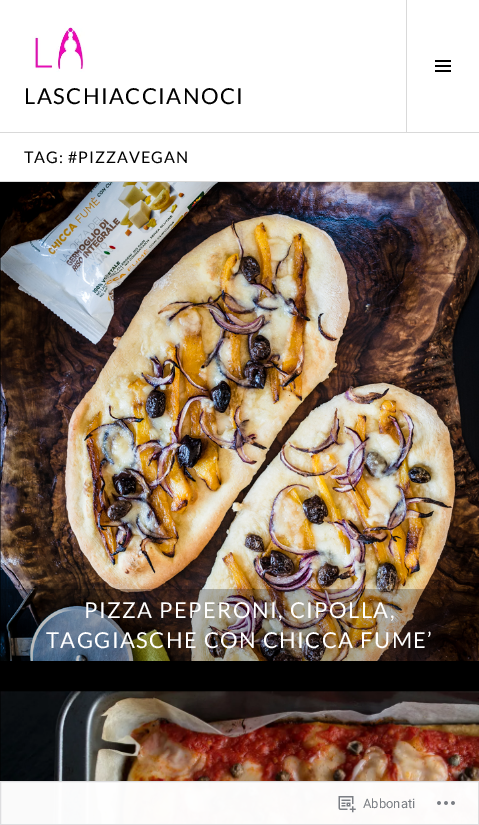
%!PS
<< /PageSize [479 825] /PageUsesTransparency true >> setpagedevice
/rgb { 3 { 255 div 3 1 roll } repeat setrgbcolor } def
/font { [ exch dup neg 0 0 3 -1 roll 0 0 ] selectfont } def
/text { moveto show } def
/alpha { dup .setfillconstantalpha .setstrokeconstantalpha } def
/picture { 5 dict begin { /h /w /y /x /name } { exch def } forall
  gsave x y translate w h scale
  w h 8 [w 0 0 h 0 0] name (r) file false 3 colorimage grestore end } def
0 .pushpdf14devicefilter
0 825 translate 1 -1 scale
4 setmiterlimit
255 255 255 rgb
0 0 479 825 rectfill
217 217 217 rgb
0 132 479 1 rectfill
(img_01.rgb) 32 27 53 45 picture
406 0 1 132 rectfill
(img_02.rgb) 435 60 16 12 picture
0 181 479 1 rectfill
0 0 0 rgb
0 182 1 479 rectfill
(img_03.rgb) 0 182 479 479 picture
0.25 alpha
0 589 479 72 rectfill
1 alpha
0 661 479 164 rectfill
(img_04.rgb) 0 691 479 134 picture
0.98 alpha
255 255 255 rgb
0 781 479 44 rectfill
220 220 222 rgb
0.5 781.5 478 43 rectstroke
1 alpha
(img_05.rgb) 338 796 18 17 picture
(img_06.rgb) 437 801 18 4 picture
/Lato-Regular 22 font
0 0 0 rgb
24 104 moveto 1.4 0 (LASCHIACCIANOCI) ashow
/Lato-Regular 16 font
24 163 moveto 1 0 (TAG: #PIZZAVEGAN) ashow
/Lato-Regular 22 font
255 255 255 rgb
84 618 moveto 1.4 0 (PIZZA PEPERONI, CIPOLLA,) ashow
46 648 moveto 1.4 0 (TAGGIASCHE CON CHICCA FUME’) ashow
/Roboto-Regular 13 font
123 127 132 rgb
(Abbonati) 363 808 text
.poppdf14devicefilter showpage
